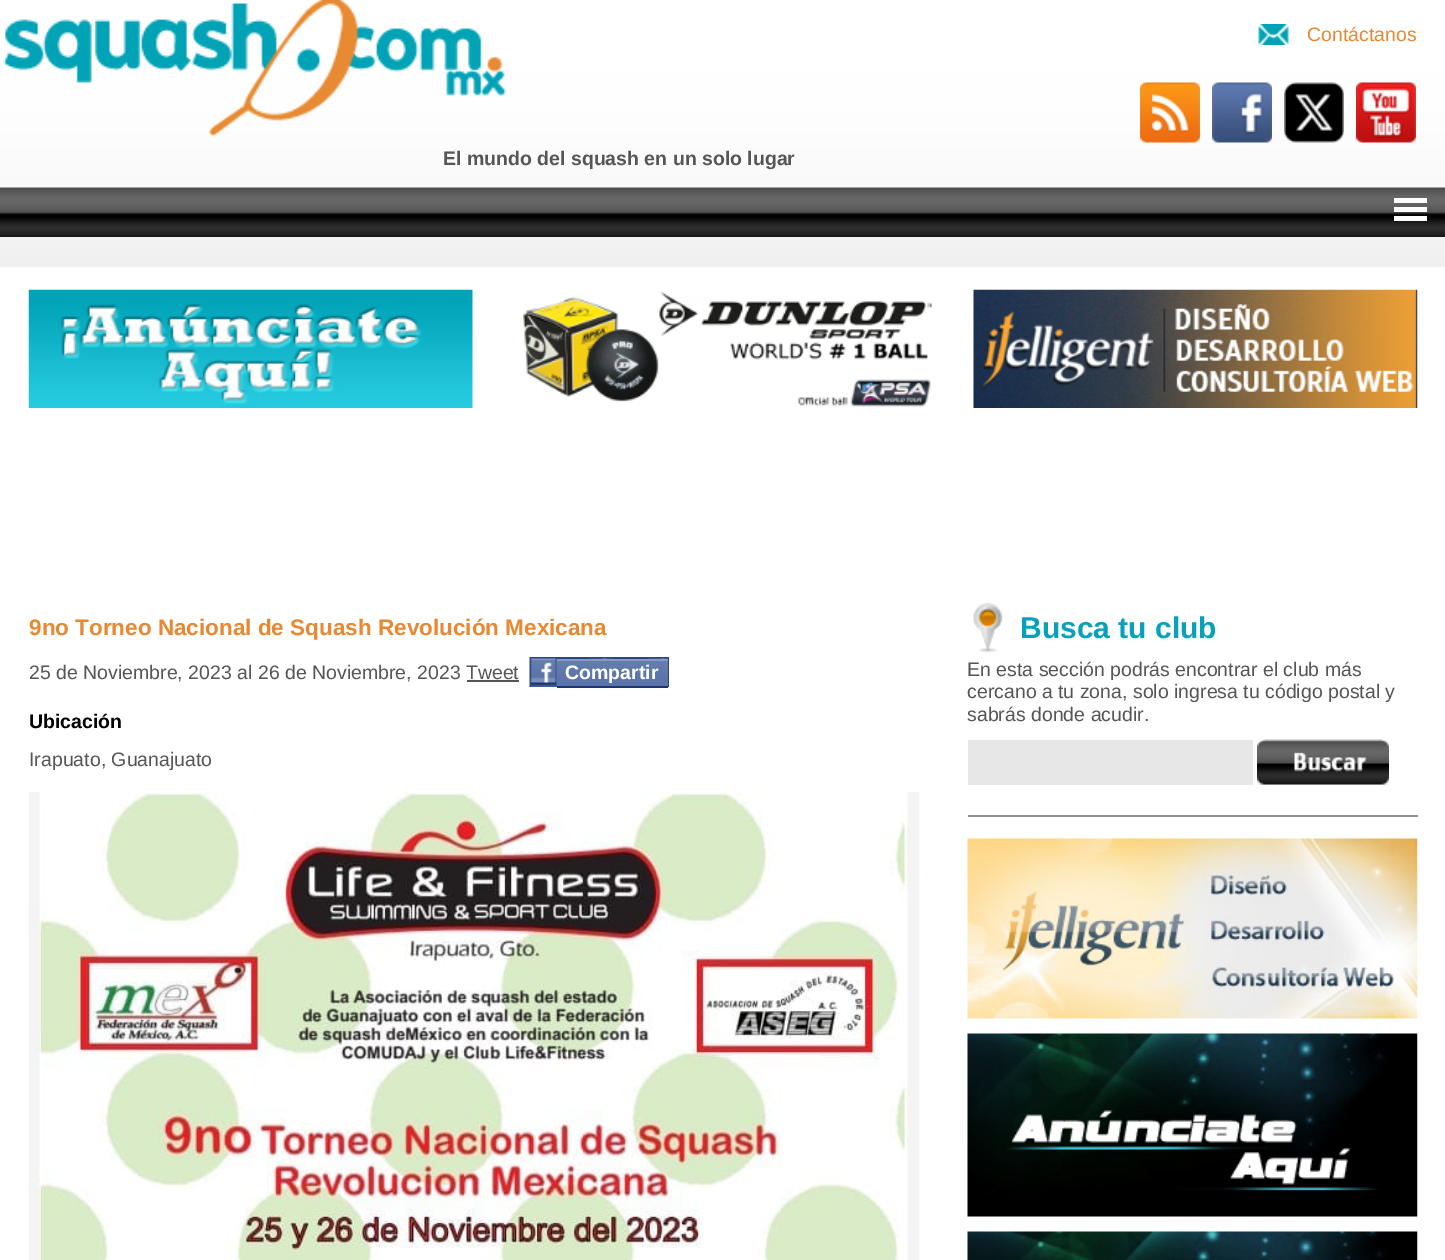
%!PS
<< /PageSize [1445 1260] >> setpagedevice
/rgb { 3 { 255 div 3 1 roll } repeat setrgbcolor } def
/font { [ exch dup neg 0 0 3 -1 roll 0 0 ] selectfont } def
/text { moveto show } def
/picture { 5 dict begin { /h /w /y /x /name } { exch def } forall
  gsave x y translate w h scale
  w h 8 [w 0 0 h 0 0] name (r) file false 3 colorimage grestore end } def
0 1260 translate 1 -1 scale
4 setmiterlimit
255 255 255 rgb
0 0 1445 1260 rectfill
(img_01.rgb) 0 0 1445 267 picture
(img_02.rgb) 1258 24 31 21 picture
(img_03.rgb) 1140 82 60 61 picture
(img_04.rgb) 1212 82 60 61 picture
(img_05.rgb) 1284 82 60 61 picture
(img_06.rgb) 1356 82 60 61 picture
(img_07.rgb) 3 0 504 137 picture
(img_08.rgb) 0 187 1445 50 picture
1394 198 33 5 rectfill
1394 207 33 5 rectfill
1394 216 33 5 rectfill
(img_09.rgb) 28 289 445 119 picture
(img_10.rgb) 523 291 409 116 picture
(img_11.rgb) 973 289 445 119 picture
41 68 126 rgb
556 657 113 30 rectfill
(img_12.rgb) 529 657 28 30 picture
95 120 171 rgb
667 661 1 25 rectfill
(img_13.rgb) 556 658 112 29 picture
135 154 192 rgb
557 659 111 2 rectfill
26 53 110 rgb
557 686 111 2 rectfill
86 86 86 rgb
467 680 52 2 rectfill
(img_14.rgb) 28 792 892 468 picture
(img_15.rgb) 973 602 30 51 picture
232 231 231 rgb
968 740 285 45 rectfill
1257 784 132 1 rectfill
(img_16.rgb) 1257 739 132 46 picture
144 144 144 rgb
968 815 450 2 rectfill
(img_17.rgb) 967 838 451 181 picture
(img_18.rgb) 967 1033 451 184 picture
(img_19.rgb) 967 1231 451 29 picture
/LiberationSans-Regular 19.5 font
232 136 50 rgb
(Contáctanos) 1307 41 text
/LiberationSans-Bold 19.5 font
86 86 86 rgb
(El mundo del squash en un solo lugar) 443 165 text
/LiberationSans-Bold 22.5 font
232 136 50 rgb
(9no Torneo Nacional de Squash Revolución Mexicana) 29 635 text
/LiberationSans-Regular 19.5 font
86 86 86 rgb
(25 de Noviembre, 2023 al 26 de Noviembre, 2023 Tweet) 29 679 text
/LiberationSans-Bold 19.5 font
255 255 255 rgb
(Compartir) 565 679 text
0 0 0 rgb
(Ubicación) 29 728 text
/LiberationSans-Regular 19.5 font
86 86 86 rgb
(Irapuato, Guanajuato) 29 766 text
/LiberationSans-Bold 30 font
7 161 187 rgb
(Busca tu club) 1020 638 text
/LiberationSans-Regular 19.5 font
86 86 86 rgb
(En esta sección podrás encontrar el club más) 967 676 text
(cercano a tu zona, solo ingresa tu código postal y) 967 698 text
(sabrás donde acudir.) 967 721 text
showpage
